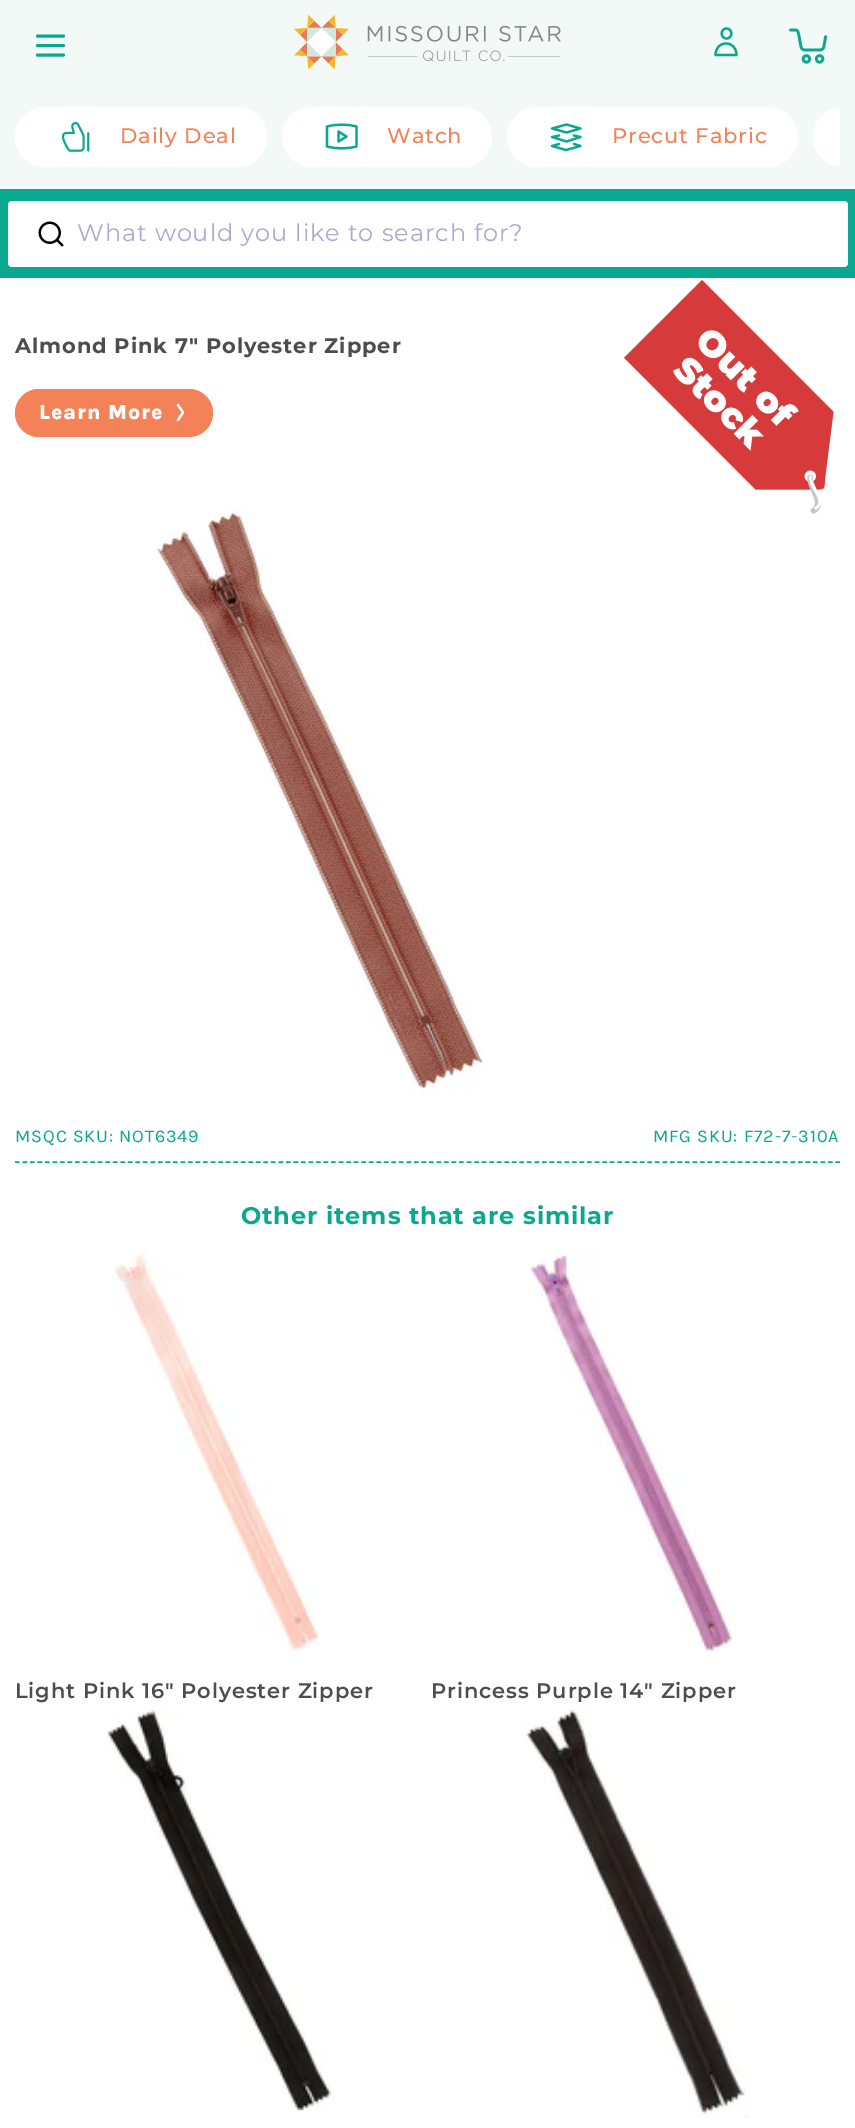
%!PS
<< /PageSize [855 2128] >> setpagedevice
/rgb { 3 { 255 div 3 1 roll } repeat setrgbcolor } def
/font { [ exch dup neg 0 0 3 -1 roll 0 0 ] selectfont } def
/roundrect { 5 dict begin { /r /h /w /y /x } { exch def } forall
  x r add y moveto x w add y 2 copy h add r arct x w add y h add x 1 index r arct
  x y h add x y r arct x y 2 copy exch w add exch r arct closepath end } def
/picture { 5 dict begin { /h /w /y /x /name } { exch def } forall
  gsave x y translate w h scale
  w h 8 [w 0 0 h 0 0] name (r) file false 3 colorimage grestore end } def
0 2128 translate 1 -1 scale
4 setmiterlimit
255 255 255 rgb
0 0 855 2128 rectfill
243 249 247 rgb
0 0 855 189 rectfill
10 168 143 rgb
3 setlinewidth
1 setlinecap
1 setlinejoin
37.5 36 moveto 26 0 rlineto 37.5 45.5 moveto 26 0 rlineto 37.5 55 moveto 26 0 rlineto stroke
(img_01.rgb) 294 14 267 56 picture
2.2 setlinewidth
726 55 moveto -10.5 0 rlineto 0 -15.5 21 -15.5 21 0 rcurveto closepath 726.5 38.5 moveto 6.5 0 6.5 -10 0 -10 rcurveto -6.5 0 -6.5 10 0 10 rcurveto closepath stroke
(img_02.rgb) 789 28 39 36 picture
255 255 255 rgb
15 107 252 60 30 roundrect fill
(img_03.rgb) 61 121 29 31 picture
282 107 210 60 30 roundrect fill
10 168 143 rgb
356.5 126.5 moveto -9.5 -2.5 -19.5 -2.5 -29.5 0 rcurveto 0 20 rlineto 10 2.5 20 2.5 29.5 0 rcurveto closepath 338.5 131.5 moveto 8 5 rlineto -8 5 rlineto closepath stroke
255 255 255 rgb
507 107 291 60 30 roundrect fill
10 168 143 rgb
574 135.5 moveto 6.5 1.5 rlineto -14 4.5 rlineto -14.5 -4.5 rlineto 7 -1.5 rlineto 574 144 moveto 6.5 2 rlineto -14.5 4 rlineto -14 -4 rlineto 7 -2 rlineto 566.5 124.5 moveto 14 4 rlineto -14 4 rlineto -14.5 -4 rlineto closepath stroke
255 255 255 rgb
843 107 moveto -3 0 rlineto 0 60 rlineto 3 0 rlineto -16.5 0 -30 -13.5 -30 -30 rcurveto 0 -16.5 13.5 -30 30 -30 rcurveto closepath fill
10 168 143 rgb
0 189 855 89 rectfill
255 255 255 rgb
8 201 840 66 4 roundrect fill
(img_04.rgb) 38 221 26 26 picture
(img_05.rgb) 624 280 210 234 picture
244 130 88 rgb
15 389 198 48 24 roundrect fill
255 255 255 rgb
178 420 moveto 5 -7.5 rlineto -5 -7.5 rlineto stroke
(img_06.rgb) 156 508 328 588 picture
10 168 143 rgb
1.5 setlinewidth
0 setlinecap
0 setlinejoin
[4.5 3.03] 0 setdash
15 1162 moveto 825 0 rlineto stroke
(img_07.rgb) 115 1253 204 398 picture
(img_08.rgb) 530 1248 202 408 picture
(img_09.rgb) 106 1709 226 402 picture
(img_10.rgb) 523 1709 226 409 picture
/Montserrat-Medium 21 font
244 130 88 rgb
120 143 moveto 0.9 0 (Daily Deal) ashow
387 143 moveto 0.9 0 (Watch) ashow
612 143 moveto 0.9 0 (Precut Fabric) ashow
/Montserrat-Regular 24 font
171 169 209 rgb
77 241 moveto 0.9 0 (What would you like to search for?) ashow
/Montserrat-Bold 21 font
77 77 77 rgb
15 353 moveto 0.9 0 (Almond Pink 7" Polyester Zipper) ashow
/Karla-ExtraBold 21 font
255 255 255 rgb
39 419 moveto 0.9 0 (Learn More) ashow
/Karla-Regular 18 font
10 168 143 rgb
15 1142 moveto 0.9 0 (MSQC SKU: NOT6349) ashow
653 1142 moveto 0.9 0 (MFG SKU: F72-7-310A) ashow
/Montserrat-Bold 24 font
241 1224 moveto 0.9 0 (Other items that are similar) ashow
/Montserrat-SemiBold 21 font
77 77 77 rgb
15 1698 moveto 0.9 0 (Light Pink 16" Polyester Zipper) ashow
431 1698 moveto 0.9 0 (Princess Purple 14" Zipper) ashow
showpage
